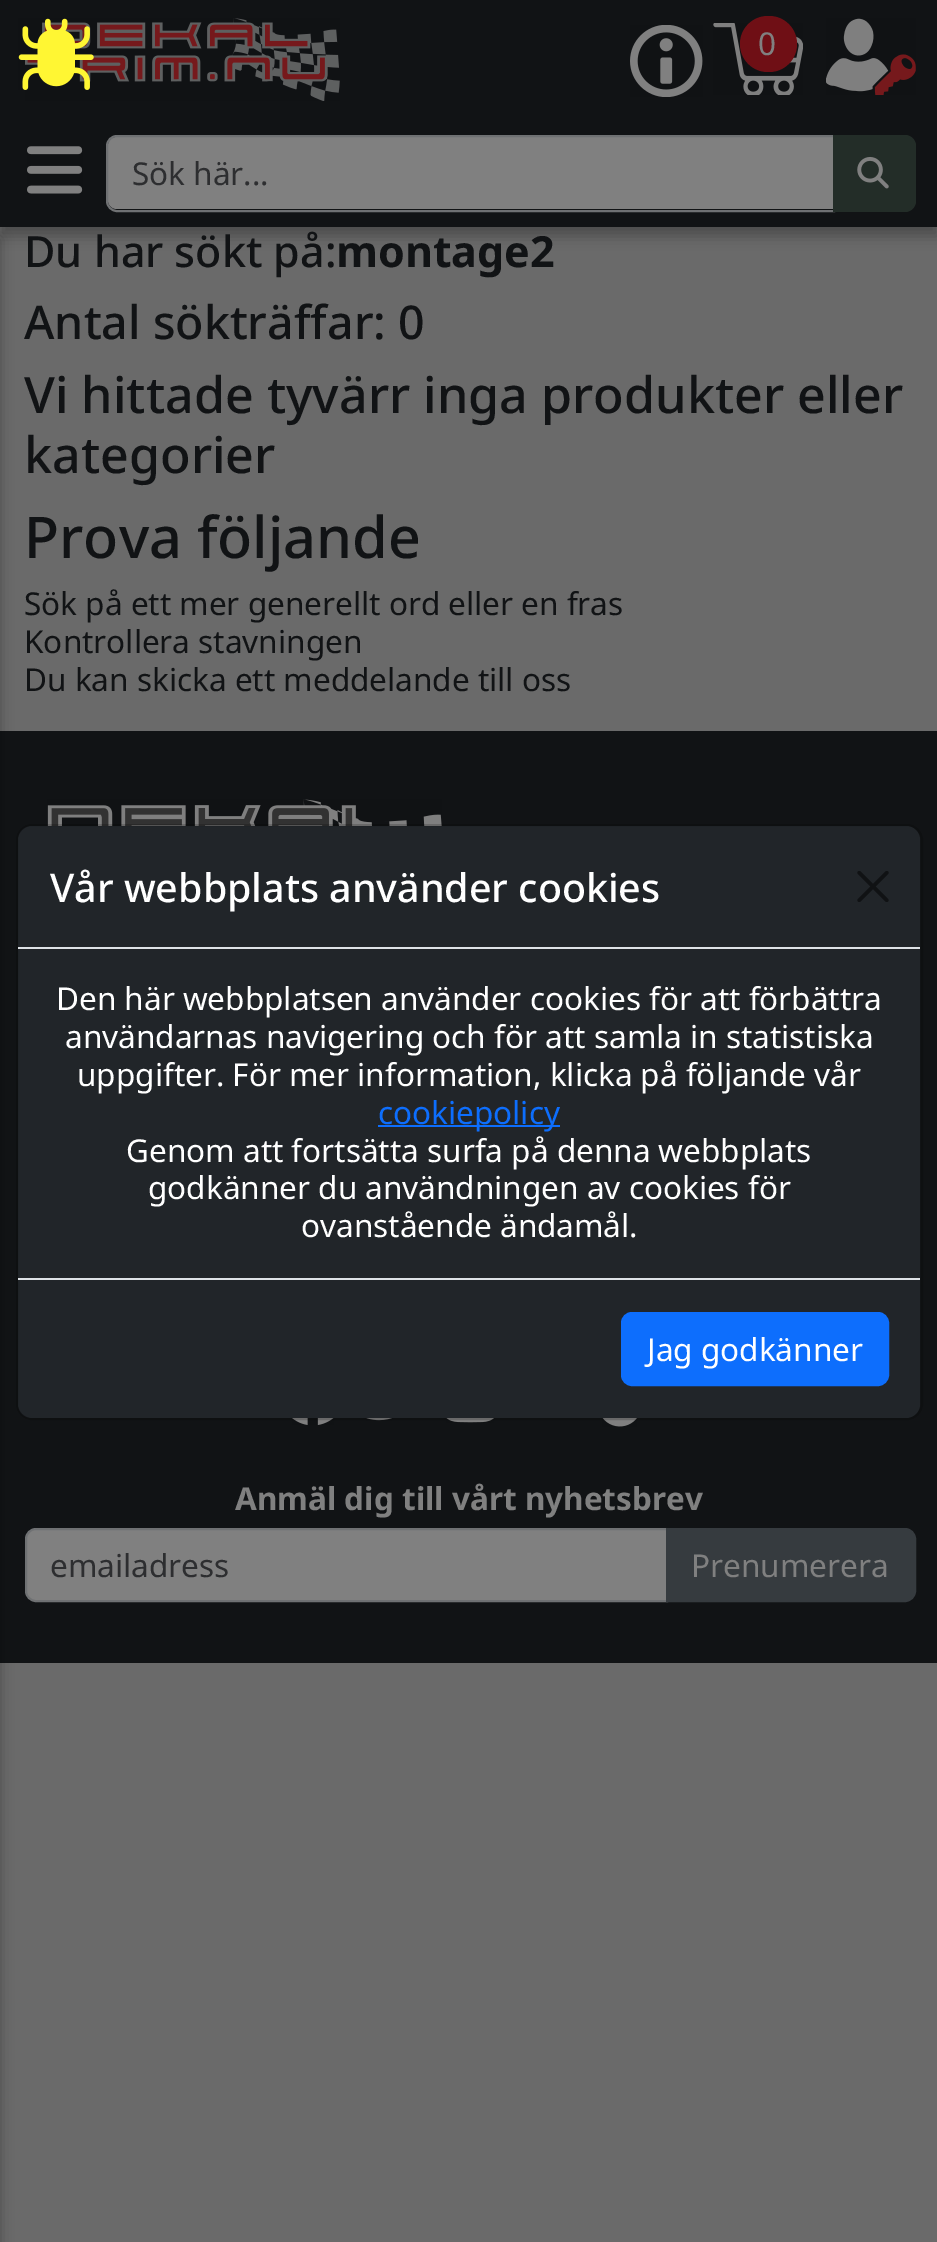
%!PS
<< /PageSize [937 2242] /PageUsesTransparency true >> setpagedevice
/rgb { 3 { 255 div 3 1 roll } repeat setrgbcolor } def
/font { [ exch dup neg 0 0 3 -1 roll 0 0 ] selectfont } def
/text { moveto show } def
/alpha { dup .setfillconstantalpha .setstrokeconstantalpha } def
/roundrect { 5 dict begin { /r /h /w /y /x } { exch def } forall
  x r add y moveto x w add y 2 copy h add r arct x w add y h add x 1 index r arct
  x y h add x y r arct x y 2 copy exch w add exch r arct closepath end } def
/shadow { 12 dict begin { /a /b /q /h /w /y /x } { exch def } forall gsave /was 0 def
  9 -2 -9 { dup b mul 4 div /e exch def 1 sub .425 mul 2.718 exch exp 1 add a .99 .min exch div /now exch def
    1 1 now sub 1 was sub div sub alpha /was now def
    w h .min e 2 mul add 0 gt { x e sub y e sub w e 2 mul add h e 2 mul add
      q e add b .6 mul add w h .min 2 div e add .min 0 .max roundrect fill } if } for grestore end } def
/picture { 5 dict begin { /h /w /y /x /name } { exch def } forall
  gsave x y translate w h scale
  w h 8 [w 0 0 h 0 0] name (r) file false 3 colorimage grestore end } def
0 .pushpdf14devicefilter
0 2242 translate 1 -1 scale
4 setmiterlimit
106 106 106 rgb
0 0 937 2242 rectfill
0 0 0 rgb
0 9 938 227 0 7 0.3 shadow
17 19 21 rgb
0 0 937 227 rectfill
(img_02.rgb) 25 18 315 83 picture
(img_01.rgb) 18 18 76 72 picture
(img_03.rgb) 630 25 73 72 picture
(img_04.rgb) 713 23 90 72 picture
111 15 21 rgb
740 16 57 56 28 roundrect fill
(img_05.rgb) 826 18 90 77 picture
(img_06.rgb) 27 146 56 48 picture
128 128 128 rgb
117 137 moveto 716 0 rlineto 0 72 rlineto -716 0 rlineto -5 0 -9 -4 -9 -9 rcurveto 0 -54 rlineto 0 -5 4 -9 9 -9 rcurveto closepath fill
111 113 115 rgb
2 setlinewidth
117 136 moveto 717 0 rlineto 0 75 rlineto -717 0 rlineto -5.5 0 -10 -4.5 -10 -10 rcurveto 0 -55 rlineto 0 -5.5 4.5 -10 10 -10 rcurveto closepath stroke
35 45 40 rgb
833 135 moveto 72 0 rlineto 6 0 11 5 11 11 rcurveto 0 55 rlineto 0 6 -5 11 -11 11 rcurveto -72 0 rlineto closepath fill
(img_07.rgb) 857 156 32 33 picture
17 19 21 rgb
0 731 937 932 rectfill
0 0 0 rgb
-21 239 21 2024 0 7 0.3 shadow
33 37 41 rgb
18 826 902 592 14 roundrect fill
(img_09.rgb) 47 799 395 27 picture
(img_10.rgb) 292 1418 42 7 picture
(img_11.rgb) 366 1418 26 3 picture
(img_12.rgb) 446 1418 48 5 picture
(img_13.rgb) 602 1418 35 9 picture
0.18 alpha
0 0 0 rgb
17 825 905 594 15 roundrect stroke
1 alpha
222 226 230 rgb
18 947 902 2 rectfill
(img_08.rgb) 857 871 32 31 picture
13 110 253 rgb
378 1125 182 2 rectfill
222 226 230 rgb
18 1278 902 2 rectfill
13 110 253 rgb
622 1313 266 72 10 roundrect gsave fill grestore
stroke
128 128 128 rgb
36 1529 moveto 631 0 rlineto 0 72 rlineto -631 0 rlineto -5.5 0 -10 -4.5 -10 -10 rcurveto 0 -52 rlineto 0 -5.5 4.5 -10 10 -10 rcurveto closepath gsave fill grestore
111 113 115 rgb
stroke
54 59 63 rgb
667 1529 moveto 238 0 rlineto 5.5 0 10 4.5 10 10 rcurveto 0 52 rlineto 0 5.5 -4.5 10 -10 10 rcurveto -238 0 rlineto closepath gsave fill grestore
stroke
/NotoSans-Regular 31.5 font
128 128 128 rgb
(0) 758 55 text
45 46 48 rgb
(Sök här...) 132 185 text
/NotoSans-Medium 43 font
17 19 21 rgb
(Du har sökt på:) 24 267 text
/NotoSans-Bold 43 font
(montage2) 336 267 text
/NotoSans-Medium 46.5 font
(Antal sökträffar: 0) 24 339 text
/NotoSans-Medium 50.2 font
(Vi hittade tyvärr inga produkter eller) 24 413 text
(kategorier) 24 473 text
/NotoSans-Medium 57.5 font
(Prova följande) 24 558 text
/NotoSans-Regular 31.5 font
(Sök på ett mer generellt ord eller en fras) 24 615 text
(Kontrollera stavningen) 24 653 text
(Du kan skicka ett meddelande till oss) 24 691 text
/NotoSans-Medium 39.4 font
255 255 255 rgb
(Vår webbplats använder cookies) 50 902 text
/NotoSans-Regular 31.5 font
(Den här webbplatsen använder cookies för att förbättra) 56 1010 text
(användarnas navigering och för att samla in statistiska) 65 1048 text
(uppgifter. För mer information, klicka på följande vår) 77 1086 text
13 110 253 rgb
(cookiepolicy) 378 1124 text
255 255 255 rgb
(Genom att fortsätta surfa på denna webbplats) 126 1162 text
(godkänner du användningen av cookies för) 148 1199 text
(ovanstående ändamål.) 301 1237 text
(Jag godkänner) 647 1361 text
/NotoSans-Bold 31.5 font
128 128 128 rgb
(Anmäl dig till vårt nyhetsbrev) 235 1510 text
/NotoSans-Regular 31.5 font
45 46 48 rgb
(emailadress) 50 1577 text
128 128 128 rgb
(Prenumerera) 691 1577 text
.poppdf14devicefilter showpage
